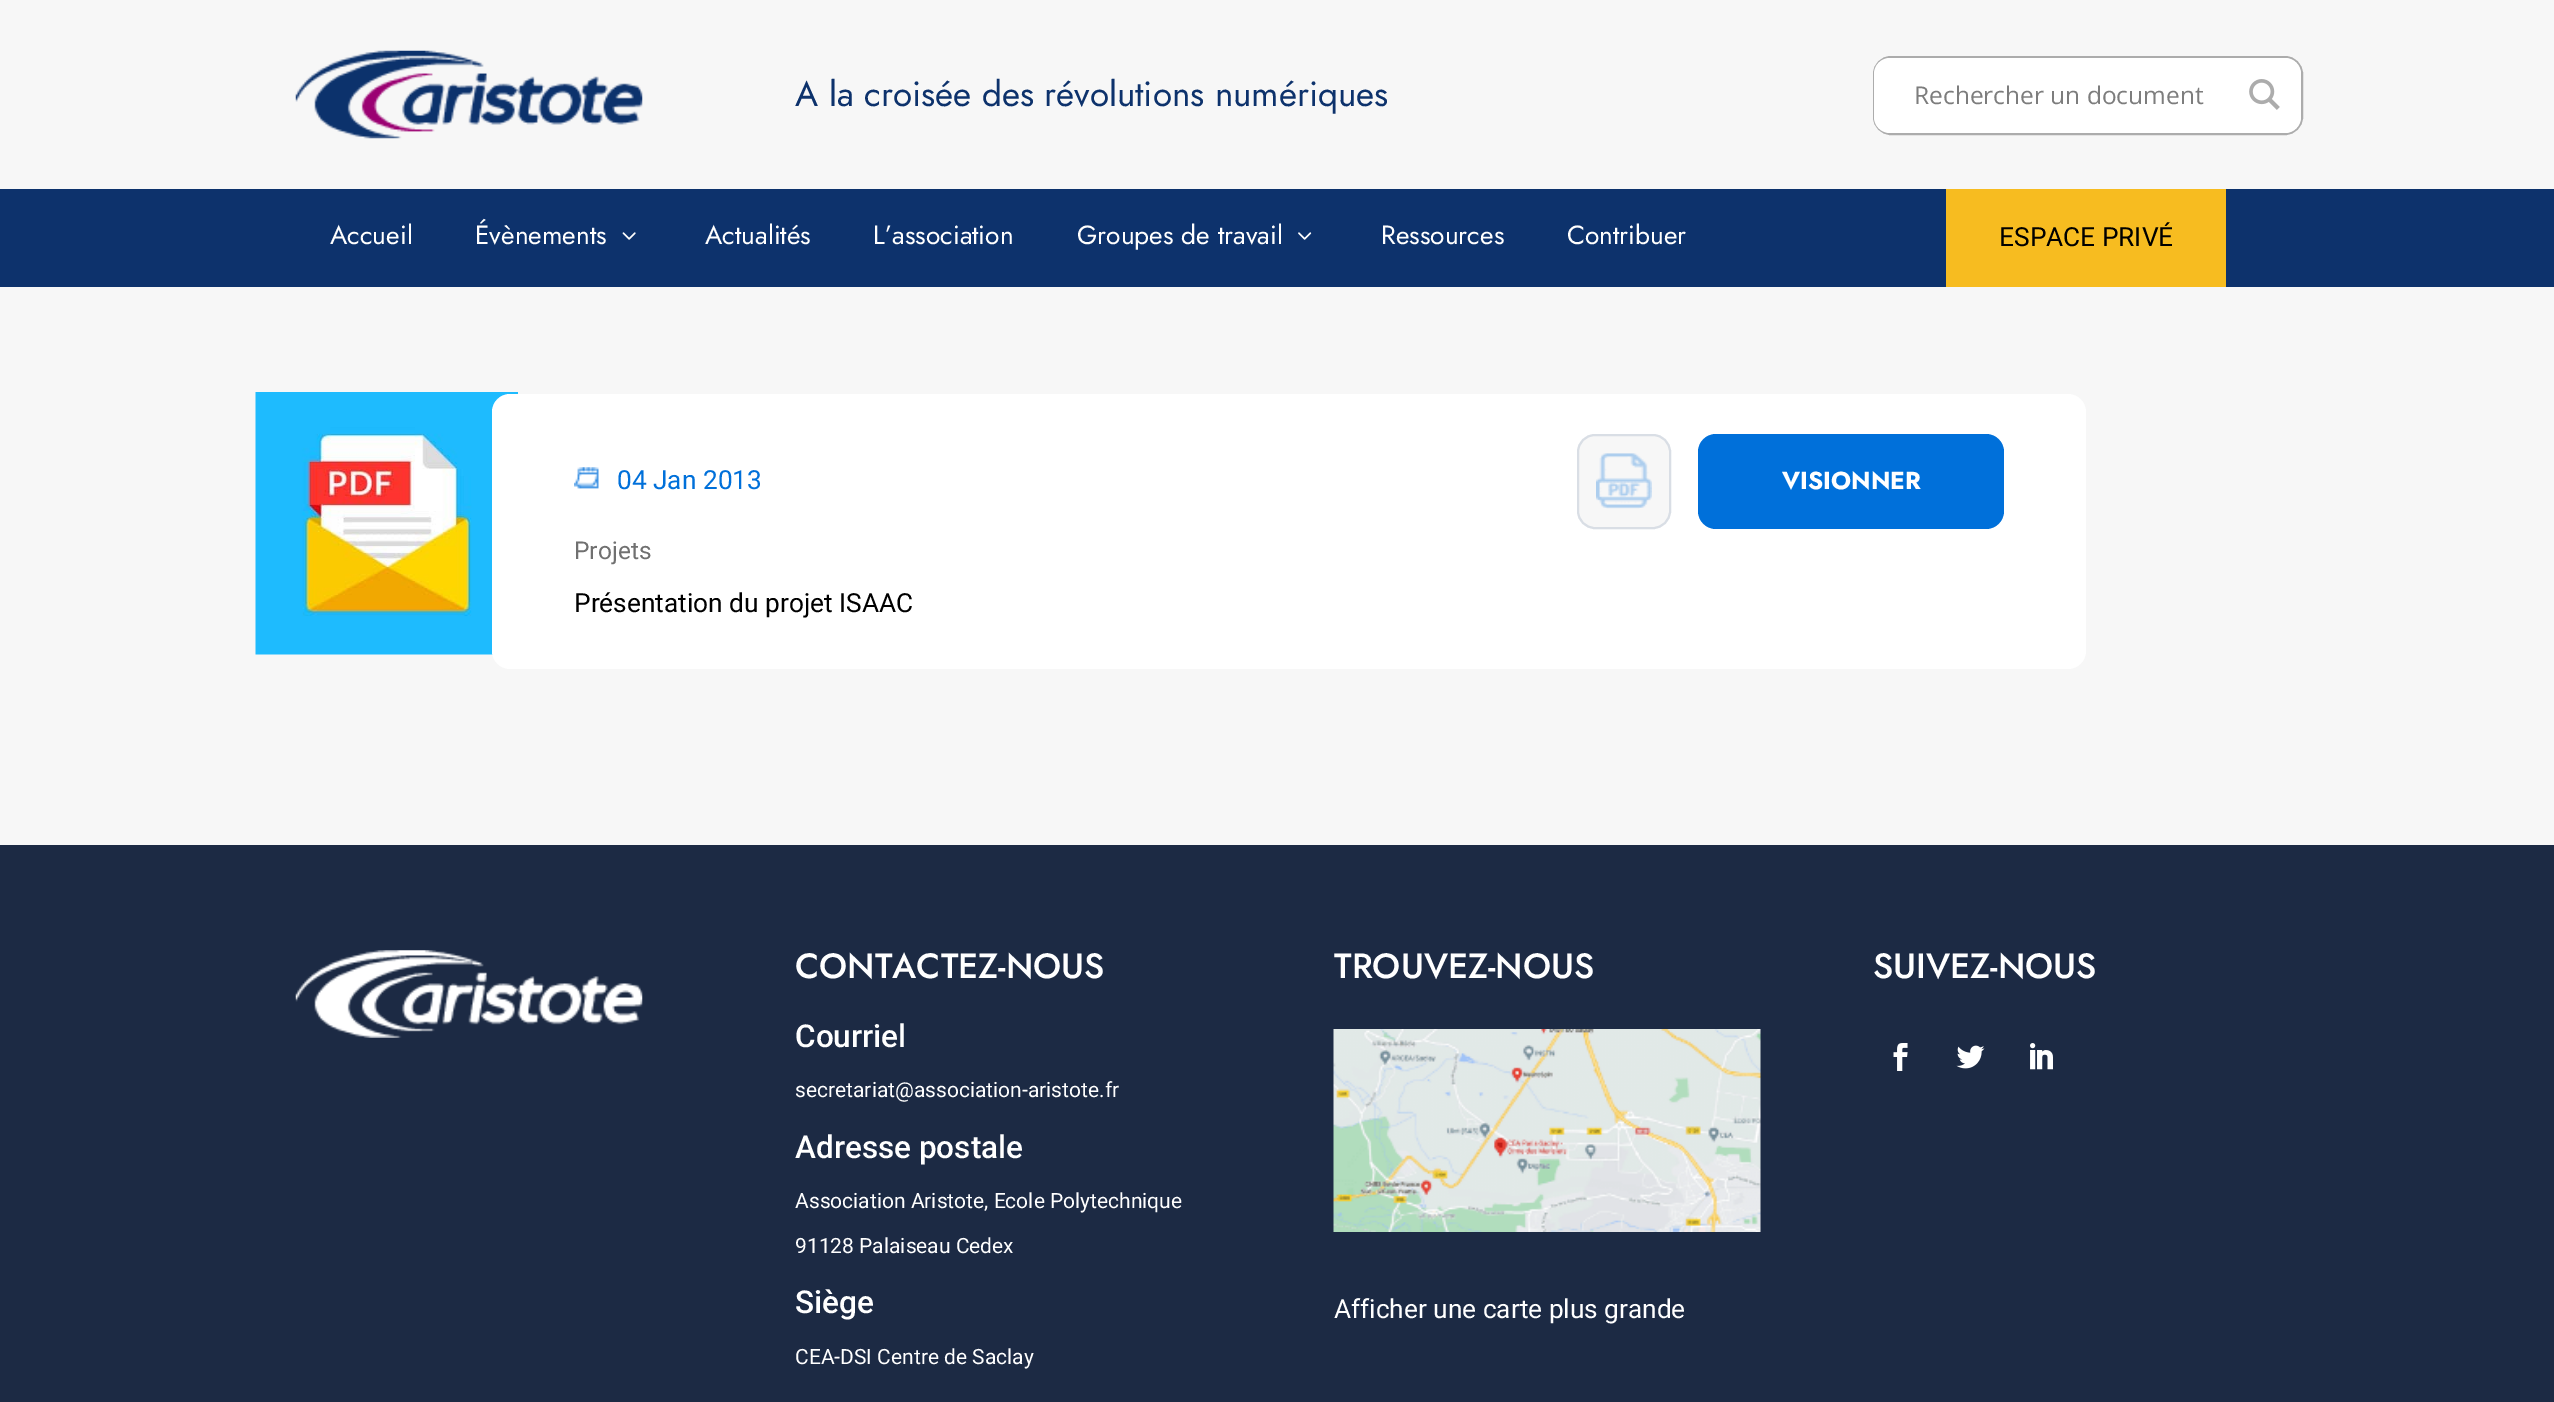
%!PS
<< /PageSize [2554 1402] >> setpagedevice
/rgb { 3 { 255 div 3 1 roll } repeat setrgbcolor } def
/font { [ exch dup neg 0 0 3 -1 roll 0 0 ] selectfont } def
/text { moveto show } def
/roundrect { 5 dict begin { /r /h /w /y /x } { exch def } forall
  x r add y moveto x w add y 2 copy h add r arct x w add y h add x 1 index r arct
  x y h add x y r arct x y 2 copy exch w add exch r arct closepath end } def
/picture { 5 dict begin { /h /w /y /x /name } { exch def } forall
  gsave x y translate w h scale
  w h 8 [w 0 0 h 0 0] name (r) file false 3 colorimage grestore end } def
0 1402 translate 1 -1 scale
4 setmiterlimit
247 247 247 rgb
0 0 2554 1402 rectfill
(img_01.rgb) 295 50 348 89 picture
172 172 172 rgb
2 setlinewidth
1874 57 428 77 17 roundrect stroke
255 255 255 rgb
1874 58 427 75 16 roundrect fill
(img_02.rgb) 2249 79 31 31 picture
13 50 108 rgb
0 189 2554 98 rectfill
(img_03.rgb) 622 232 14 8 picture
(img_04.rgb) 1298 232 14 8 picture
247 188 32 rgb
1946 189 280 98 rectfill
(img_05.rgb) 255 392 263 263 picture
255 255 255 rgb
492 394 1594 275 18 roundrect fill
(img_06.rgb) 574 467 25 22 picture
247 247 247 rgb
1578 435 92 93 17 roundrect gsave fill grestore
217 222 229 rgb
stroke
(img_07.rgb) 1596 453 56 56 picture
0 112 218 rgb
1698 434 306 95 18 roundrect fill
28 42 68 rgb
0 845 2554 557 rectfill
(img_08.rgb) 295 950 348 88 picture
(img_09.rgb) 1333 1029 428 203 picture
(img_10.rgb) 1893 1043 15 28 picture
(img_11.rgb) 1956 1045 29 24 picture
(img_12.rgb) 2030 1043 23 27 picture
/Jost-Regular 35 font
13 50 108 rgb
(A la croisée des révolutions numériques) 795 106 text
/OpenSans-Regular 24.5 font
125 125 125 rgb
(Rechercher un document) 1914 104 text
/Jost-Regular 26.25 font
255 255 255 rgb
(Accueil) 330 244 text
(Évènements) 475 244 text
(Actualités) 705 244 text
(L’association) 873 244 text
(Groupes de travail) 1077 244 text
(Ressources) 1381 244 text
(Contribuer) 1567 244 text
/Roboto-Regular 26.25 font
0 0 0 rgb
(ESPACE PRIVÉ) 1999 246 text
0 112 218 rgb
(04 Jan 2013) 617 489 text
/Jost-Bold 24.5 font
255 255 255 rgb
(VISIONNER) 1782 489 text
/Roboto-Regular 24.5 font
112 112 112 rgb
(Projets) 574 559 text
/Roboto-Regular 26.25 font
0 0 0 rgb
(Présentation du projet ISAAC) 574 612 text
/Jost-Medium 35 font
255 255 255 rgb
(CONTACTEZ-NOUS) 795 978 text
/Roboto-Medium 31.5 font
(Courriel) 795 1047 text
/Roboto-Regular 21 font
(secretariat@association-aristote.fr) 795 1097 text
/Roboto-Medium 31.5 font
(Adresse postale) 795 1158 text
/Roboto-Regular 21 font
(Association Aristote, Ecole Polytechnique) 795 1208 text
(91128 Palaiseau Cedex) 795 1253 text
/Roboto-Medium 31.5 font
(Siège) 795 1313 text
/Roboto-Regular 21 font
(CEA-DSI Centre de Saclay) 795 1364 text
/Jost-Medium 35 font
(TROUVEZ-NOUS) 1334 978 text
/Roboto-Regular 26.25 font
(Afficher une carte plus grande) 1334 1318 text
/Jost-Medium 35 font
(SUIVEZ-NOUS) 1873 978 text
showpage
